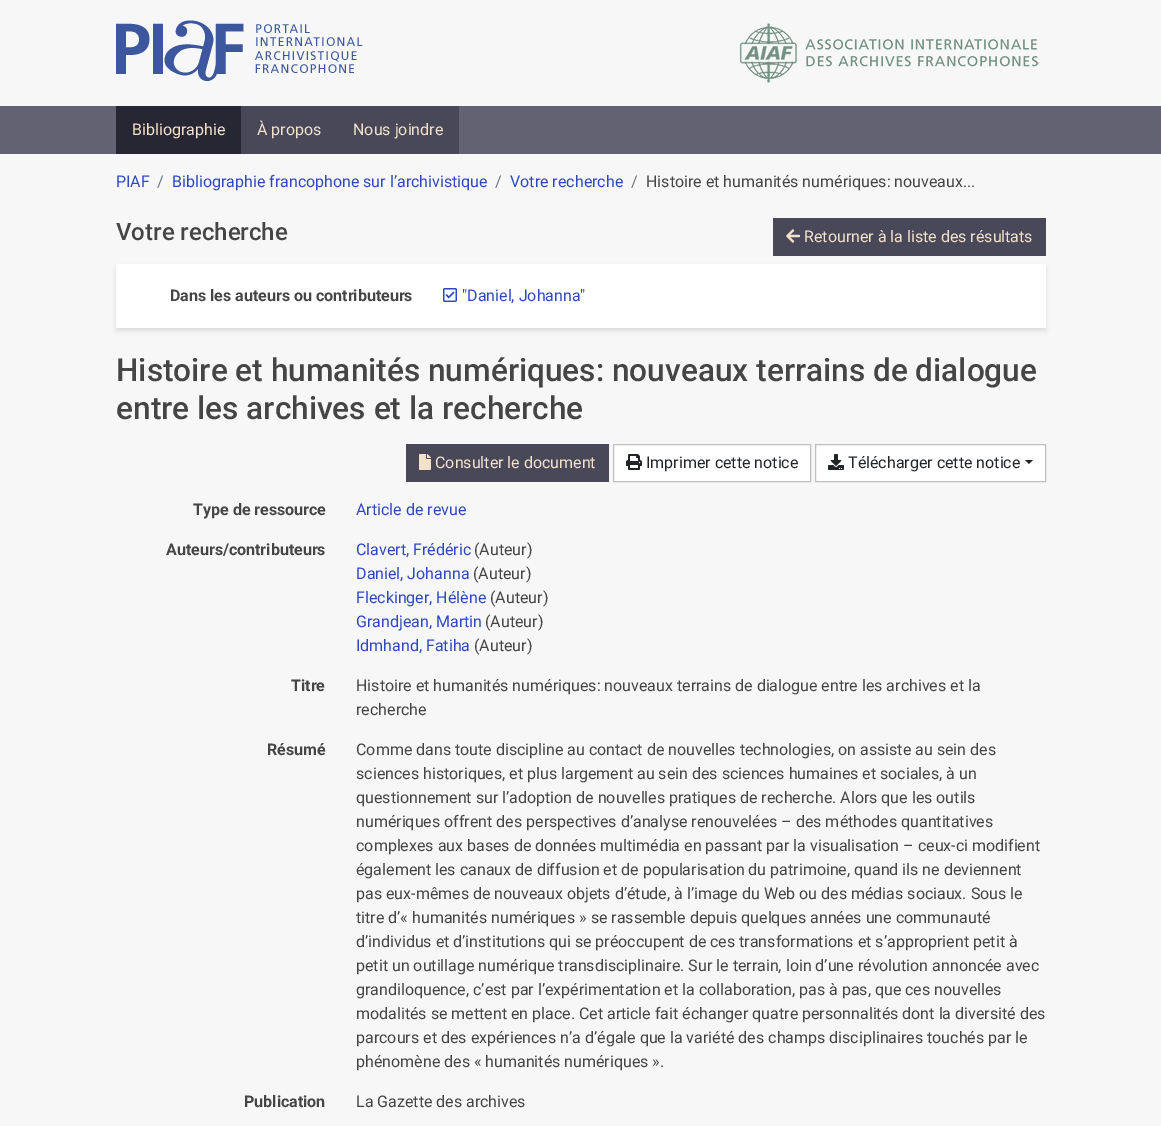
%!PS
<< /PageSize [1161 1126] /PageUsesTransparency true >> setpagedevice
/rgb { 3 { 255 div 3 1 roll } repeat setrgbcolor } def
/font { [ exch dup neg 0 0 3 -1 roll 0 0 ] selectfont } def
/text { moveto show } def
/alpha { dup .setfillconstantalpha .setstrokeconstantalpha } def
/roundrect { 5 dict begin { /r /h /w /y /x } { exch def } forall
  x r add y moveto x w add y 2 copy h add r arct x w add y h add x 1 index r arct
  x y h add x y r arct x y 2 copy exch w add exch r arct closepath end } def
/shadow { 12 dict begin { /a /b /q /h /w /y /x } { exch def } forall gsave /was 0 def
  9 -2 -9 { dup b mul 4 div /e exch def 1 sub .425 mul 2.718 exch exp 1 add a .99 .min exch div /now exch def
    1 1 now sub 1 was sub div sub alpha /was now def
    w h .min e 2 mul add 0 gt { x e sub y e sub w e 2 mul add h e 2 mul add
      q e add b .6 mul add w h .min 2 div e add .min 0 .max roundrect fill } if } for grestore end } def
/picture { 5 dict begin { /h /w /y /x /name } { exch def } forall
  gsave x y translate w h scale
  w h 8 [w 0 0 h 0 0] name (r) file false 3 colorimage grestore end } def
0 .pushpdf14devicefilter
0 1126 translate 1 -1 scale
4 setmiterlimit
247 247 247 rgb
0 0 1161 1126 rectfill
(img_01.rgb) 116 20 247 61 picture
(img_02.rgb) 739 23 300 60 picture
98 98 114 rgb
0 106 1161 48 rectfill
39 39 51 rgb
116 106 125 48 rectfill
72 72 88 rgb
241 106 218 48 rectfill
773 218 273 38 rectfill
(img_03.rgb) 786 229 14 14 picture
0 0 0 rgb
116 267 930 64 0 2 0.1 shadow
255 255 255 rgb
116 264 930 64 rectfill
(img_04.rgb) 443 288 14 14 picture
72 72 88 rgb
406 444 203 38 rectfill
(img_05.rgb) 419 454 12 16 picture
255 255 255 rgb
613.5 444.5 moveto 197 0 rlineto 0 37 rlineto -197 0 rlineto closepath gsave fill grestore
191 191 191 rgb
stroke
(img_06.rgb) 626 454 16 16 picture
255 255 255 rgb
815.5 444.5 moveto 230 0 rlineto 0 37 rlineto -230 0 rlineto closepath gsave fill grestore
191 191 191 rgb
stroke
(img_07.rgb) 828 454 16 16 picture
33 37 41 rgb
1025 460 moveto 8 0 rlineto -4 4 rlineto closepath fill
/Roboto-Regular 16 font
242 225 203 rgb
(Bibliographie) 132 135 text
(À propos) 257 135 text
(Nous joindre) 353 135 text
48 72 191 rgb
(PIAF) 116 187 text
108 117 125 rgb
(/) 157 187 text
48 72 191 rgb
(Bibliographie francophone sur l’archivistique) 172 187 text
108 117 125 rgb
(/) 495 187 text
48 72 191 rgb
(Votre recherche) 510 187 text
108 117 125 rgb
(/) 631 187 text
69 69 69 rgb
(Histoire et humanités numériques: nouveaux...) 646 187 text
/Roboto-Medium 24 font
(Votre recherche) 116 240 text
/Roboto-Regular 16 font
242 225 203 rgb
(Retourner à la liste des résultats) 804 242 text
/Roboto-Bold 16 font
69 69 69 rgb
(Dans les auteurs ou contributeurs) 170 301 text
/Roboto-Regular 16 font
48 72 191 rgb
("Daniel, Johanna") 462 301 text
/Roboto-Medium 31.65 font
69 69 69 rgb
(Histoire et humanités numériques: nouveaux terrains de dialogue) 116 381 text
(entre les archives et la recherche) 116 419 text
/Roboto-Regular 16 font
242 225 203 rgb
(Consulter le document) 435 468 text
33 37 41 rgb
(Imprimer cette notice) 646 468 text
(Télécharger cette notice) 848 468 text
/Roboto-Bold 16 font
69 69 69 rgb
(Type de ressource) 193 515 text
/Roboto-Regular 16 font
48 72 191 rgb
(Article de revue) 356 515 text
/Roboto-Bold 16 font
69 69 69 rgb
(Auteurs/contributeurs) 166 555 text
/Roboto-Regular 16 font
48 72 191 rgb
(Clavert, Frédéric) 356 555 text
69 69 69 rgb
(\(Auteur\)) 474 555 text
48 72 191 rgb
(Daniel, Johanna) 356 579 text
69 69 69 rgb
(\(Auteur\)) 473 579 text
48 72 191 rgb
(Fleckinger, Hélène) 356 603 text
69 69 69 rgb
(\(Auteur\)) 490 603 text
48 72 191 rgb
(Grandjean, Martin) 356 627 text
69 69 69 rgb
(\(Auteur\)) 485 627 text
48 72 191 rgb
(Idmhand, Fatiha) 356 651 text
69 69 69 rgb
(\(Auteur\)) 474 651 text
/Roboto-Bold 16 font
(Titre) 291 691 text
/Roboto-Regular 16 font
(Histoire et humanités numériques: nouveaux terrains de dialogue entre les archives et la) 356 691 text
(recherche) 356 715 text
/Roboto-Bold 16 font
(Résumé) 267 755 text
/Roboto-Regular 16 font
(Comme dans toute discipline au contact de nouvelles technologies, on assiste au sein des) 356 755 text
(sciences historiques, et plus largement au sein des sciences humaines et sociales, à un) 356 779 text
(questionnement sur l’adoption de nouvelles pratiques de recherche. Alors que les outils) 356 803 text
(numériques offrent des perspectives d’analyse renouvelées – des méthodes quantitatives) 356 827 text
(complexes aux bases de données multimédia en passant par la visualisation – ceux-ci modifient) 356 851 text
(également les canaux de diffusion et de popularisation du patrimoine, quand ils ne deviennent) 356 875 text
(pas eux-mêmes de nouveaux objets d’étude, à l’image du Web ou des médias sociaux. Sous le) 356 899 text
(titre d’« humanités numériques » se rassemble depuis quelques années une communauté) 356 923 text
(d’individus et d’institutions qui se préoccupent de ces transformations et s’approprient petit à) 356 947 text
(petit un outillage numérique transdisciplinaire. Sur le terrain, loin d’une révolution annoncée avec) 356 971 text
(grandiloquence, c’est par l’expérimentation et la collaboration, pas à pas, que ces nouvelles) 356 995 text
(modalités se mettent en place. Cet article fait échanger quatre personnalités dont la diversité des) 356 1019 text
(parcours et des expériences n’a d’égale que la variété des champs disciplinaires touchés par le) 356 1043 text
(phénomène des « humanités numériques ».) 356 1067 text
/Roboto-Bold 16 font
(Publication) 244 1107 text
/Roboto-Regular 16 font
(La Gazette des archives) 356 1107 text
.poppdf14devicefilter showpage
